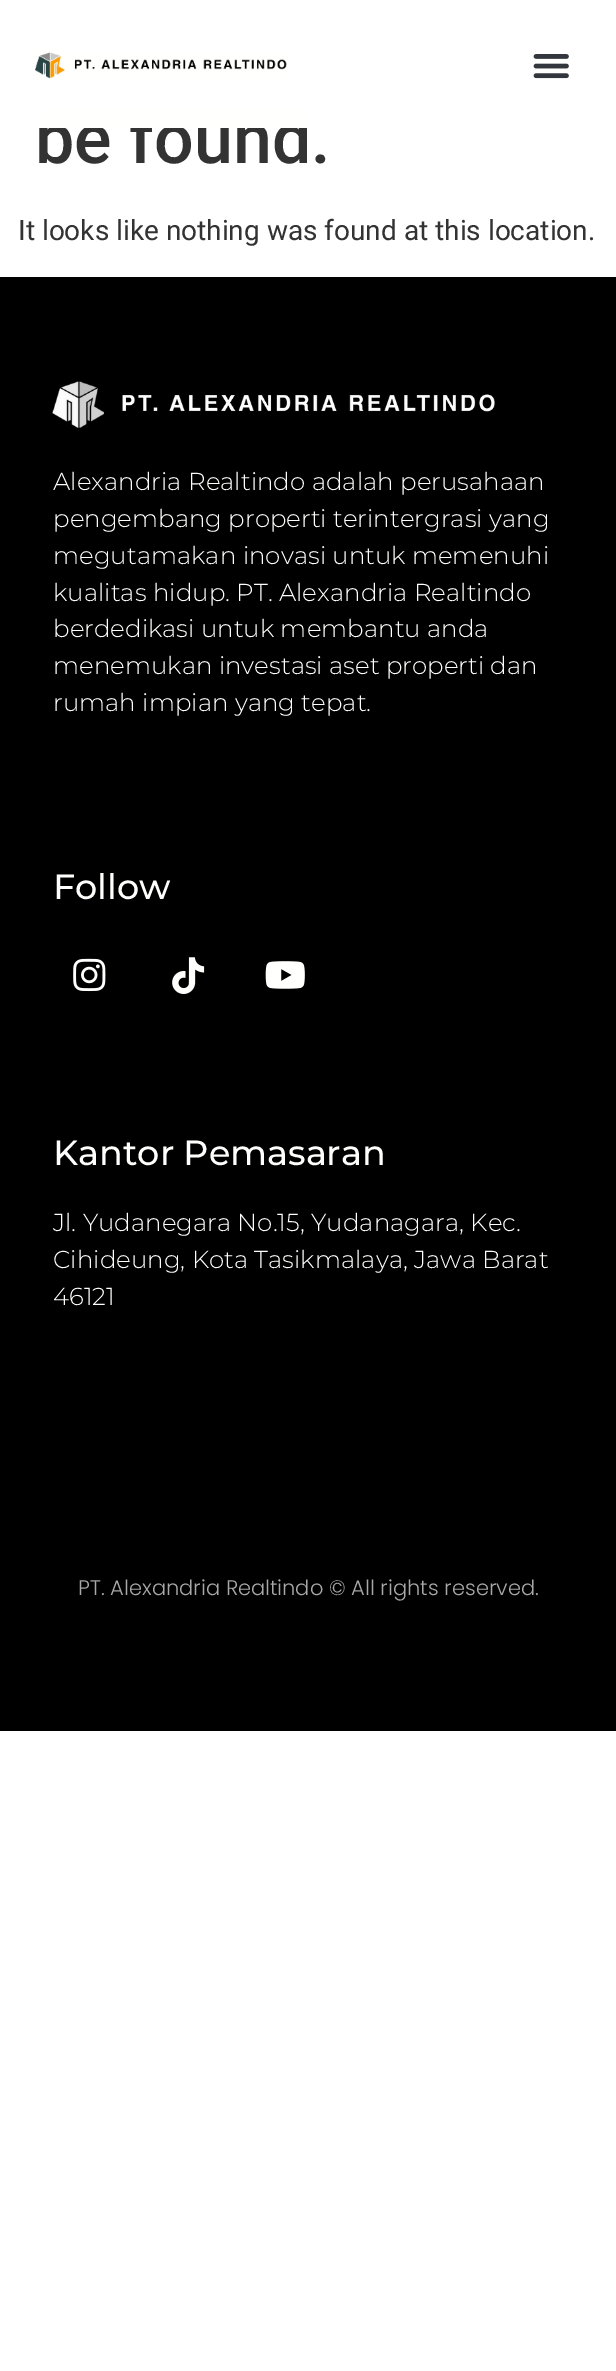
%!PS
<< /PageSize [616 2371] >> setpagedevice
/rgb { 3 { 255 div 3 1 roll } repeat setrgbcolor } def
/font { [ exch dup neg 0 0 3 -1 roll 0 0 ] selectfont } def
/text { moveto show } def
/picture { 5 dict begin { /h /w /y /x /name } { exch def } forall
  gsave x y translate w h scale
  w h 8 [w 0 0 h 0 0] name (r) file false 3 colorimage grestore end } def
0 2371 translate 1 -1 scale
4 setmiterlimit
255 255 255 rgb
0 0 616 2371 rectfill
(img_01.rgb) 35 52 252 27 picture
(img_02.rgb) 533 54 36 25 picture
0 0 0 rgb
0 277 616 1454 rectfill
(img_03.rgb) 52 381 443 47 picture
(img_04.rgb) 73 958 33 34 picture
(img_05.rgb) 172 957 33 37 picture
(img_06.rgb) 265 961 40 28 picture
/Roboto-Medium 70 font
51 51 51 rgb
(be found.) 35 163 text
255 255 253 rgb
39 109 268 19 rectfill
/Roboto-Regular 28 font
51 51 51 rgb
(It looks like nothing was found at this location.) 18 240 text
/Montserrat-Light 24.5 font
255 255 253 rgb
(Alexandria Realtindo adalah perusahaan) 53 490 text
(pengembang properti terintergrasi yang) 53 527 text
(megutamakan inovasi untuk memenuhi) 53 564 text
(kualitas hidup. PT. Alexandria Realtindo) 53 601 text
(berdedikasi untuk membantu anda) 53 637 text
(menemukan investasi aset properti dan) 53 674 text
(rumah impian yang tepat.) 53 711 text
/Montserrat-Medium 35 font
(Follow) 53 899 text
(Kantor Pemasaran) 53 1165 text
/Montserrat-Light 24.5 font
(Jl. Yudanegara No.15, Yudanagara, Kec.) 53 1231 text
(Cihideung, Kota Tasikmalaya, Jawa Barat) 53 1268 text
(46121) 53 1305 text
/Poppins-Light 21 font
168 168 168 rgb
(PT. Alexandria Realtindo © All rights reserved.) 78 1595 text
showpage
